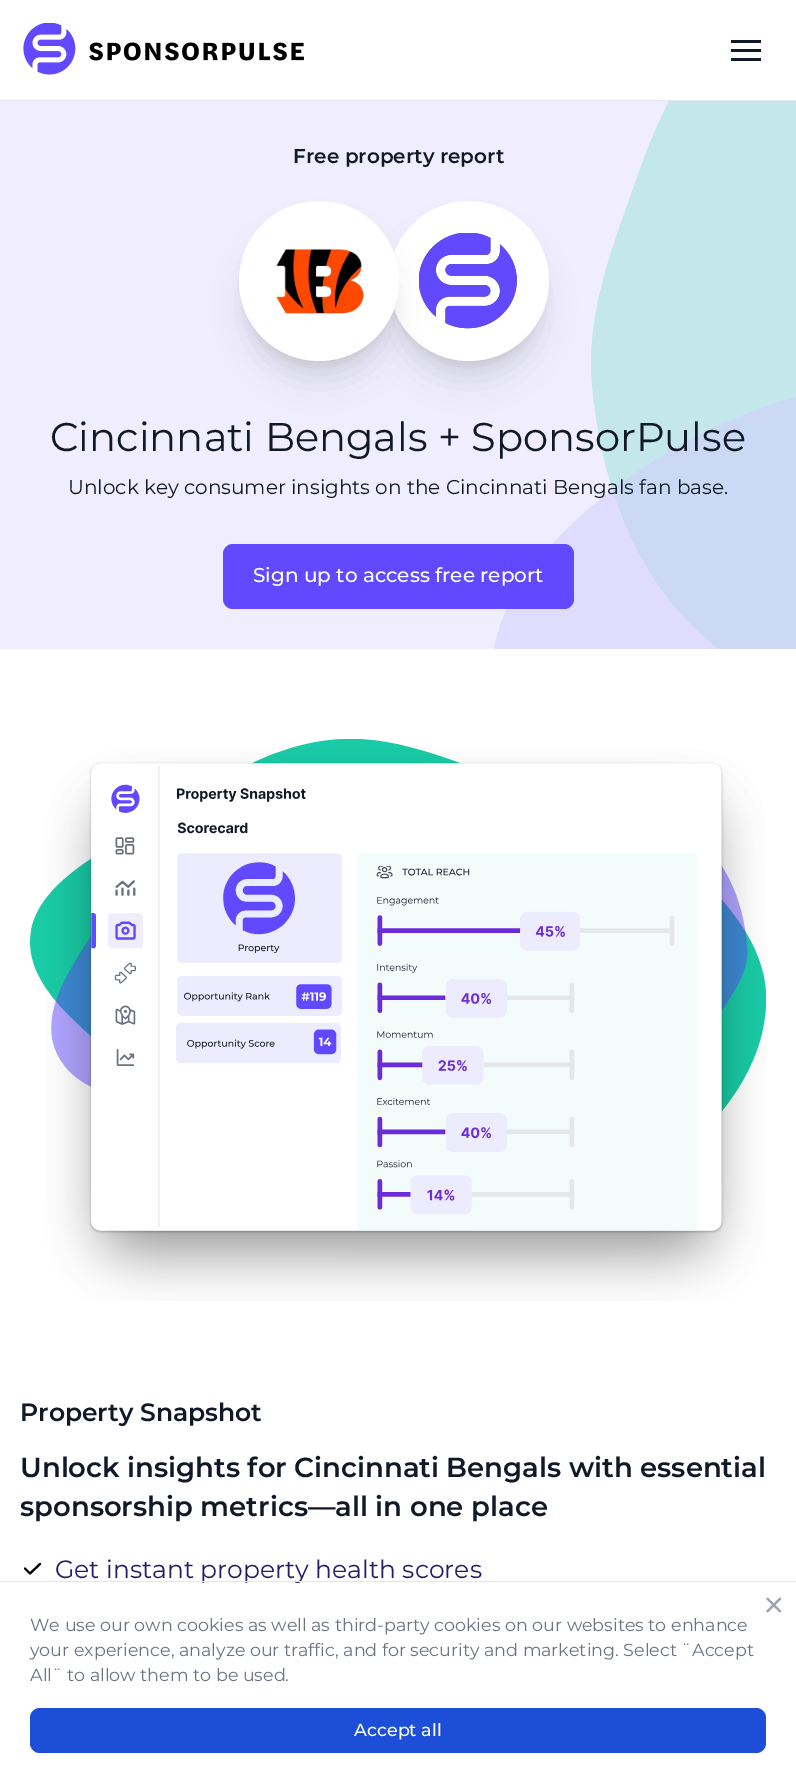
%!PS
<< /PageSize [796 1782] /PageUsesTransparency true >> setpagedevice
/rgb { 3 { 255 div 3 1 roll } repeat setrgbcolor } def
/font { [ exch dup neg 0 0 3 -1 roll 0 0 ] selectfont } def
/text { moveto show } def
/alpha { dup .setfillconstantalpha .setstrokeconstantalpha } def
/circle { newpath 0 360 arc closepath } def
/roundrect { 5 dict begin { /r /h /w /y /x } { exch def } forall
  x r add y moveto x w add y 2 copy h add r arct x w add y h add x 1 index r arct
  x y h add x y r arct x y 2 copy exch w add exch r arct closepath end } def
/shadow { 12 dict begin { /a /b /q /h /w /y /x } { exch def } forall gsave /was 0 def
  9 -2 -9 { dup b mul 4 div /e exch def 1 sub .425 mul 2.718 exch exp 1 add a .99 .min exch div /now exch def
    1 1 now sub 1 was sub div sub alpha /was now def
    w h .min e 2 mul add 0 gt { x e sub y e sub w e 2 mul add h e 2 mul add
      q e add b .6 mul add w h .min 2 div e add .min 0 .max roundrect fill } if } for grestore end } def
/picture { 5 dict begin { /h /w /y /x /name } { exch def } forall
  gsave x y translate w h scale
  w h 8 [w 0 0 h 0 0] name (r) file false 3 colorimage grestore end } def
0 .pushpdf14devicefilter
0 1782 translate 1 -1 scale
4 setmiterlimit
255 255 255 rgb
0 0 796 1782 rectfill
229 231 235 rgb
0 100 796 1 rectfill
(img_01.rgb) 23 23 281 52 picture
17 25 40 rgb
731 40 30 3 rectfill
731 49 30 3 rectfill
731 58 30 3 rectfill
239 237 254 rgb
0 101 796 548 rectfill
(img_02.rgb) 494 101 302 548 picture
0 0 0 rgb
396 219 145 145 72.5 6 0.1 shadow
395 233 148 147 73.5 15.5 0.1 shadow
255 255 255 rgb
469 281 80 circle fill
0 0 0 rgb
246 219 145 145 72.5 6 0.1 shadow
(img_04.rgb) 419 233 98 96 picture
245 233 148 147 73.5 15.5 0.1 shadow
255 255 255 rgb
319 281 80 circle fill
(img_03.rgb) 276 248 89 66 picture
98 72 255 rgb
223 544 351 65 10 roundrect fill
(img_05.rgb) 30 739 736 562 picture
0 0 0 rgb
2.1 setlinewidth
1 setlinecap
1 setlinejoin
25 1568.5 moveto 5 5 rlineto 10 -9.5 rlineto stroke
(img_06.rgb) 766 1597 16 16 picture
29 78 216 rgb
30 1708 736 45 10 roundrect fill
/Montserrat-SemiBold 20 font
17 25 40 rgb
(Free property report) 293 163 text
/Montserrat-Regular 40 font
(Cincinnati Bengals + SponsorPulse) 50 451 text
/Montserrat-Regular 20 font
(Unlock key consumer insights on the Cincinnati Bengals fan base.) 68 494 text
/Montserrat-Medium 20 font
255 255 255 rgb
(Sign up to access free report) 253 582 text
/Montserrat-SemiBold 25 font
17 25 40 rgb
(Property Snapshot) 20 1421 text
/Montserrat-SemiBold 27.5 font
(Unlock insights for Cincinnati Bengals with essential) 20 1477 text
(sponsorship metrics—all in one place) 20 1516 text
/Montserrat-Regular 25 font
39 29 102 rgb
(Get instant property health scores) 55 1578 text
229 231 235 rgb
0 1581 796 1 rectfill
/Montserrat-Regular 17.5 font
107 114 128 rgb
(We use our own cookies as well as third-party cookies on our websites to enhance) 30 1631 text
(your experience, analyze our traffic, and for security and marketing. Select ¨Accept) 30 1656 text
(All¨ to allow them to be used.) 30 1681 text
/Montserrat-Medium 17.5 font
255 255 255 rgb
(Accept all) 354 1736 text
.poppdf14devicefilter showpage
